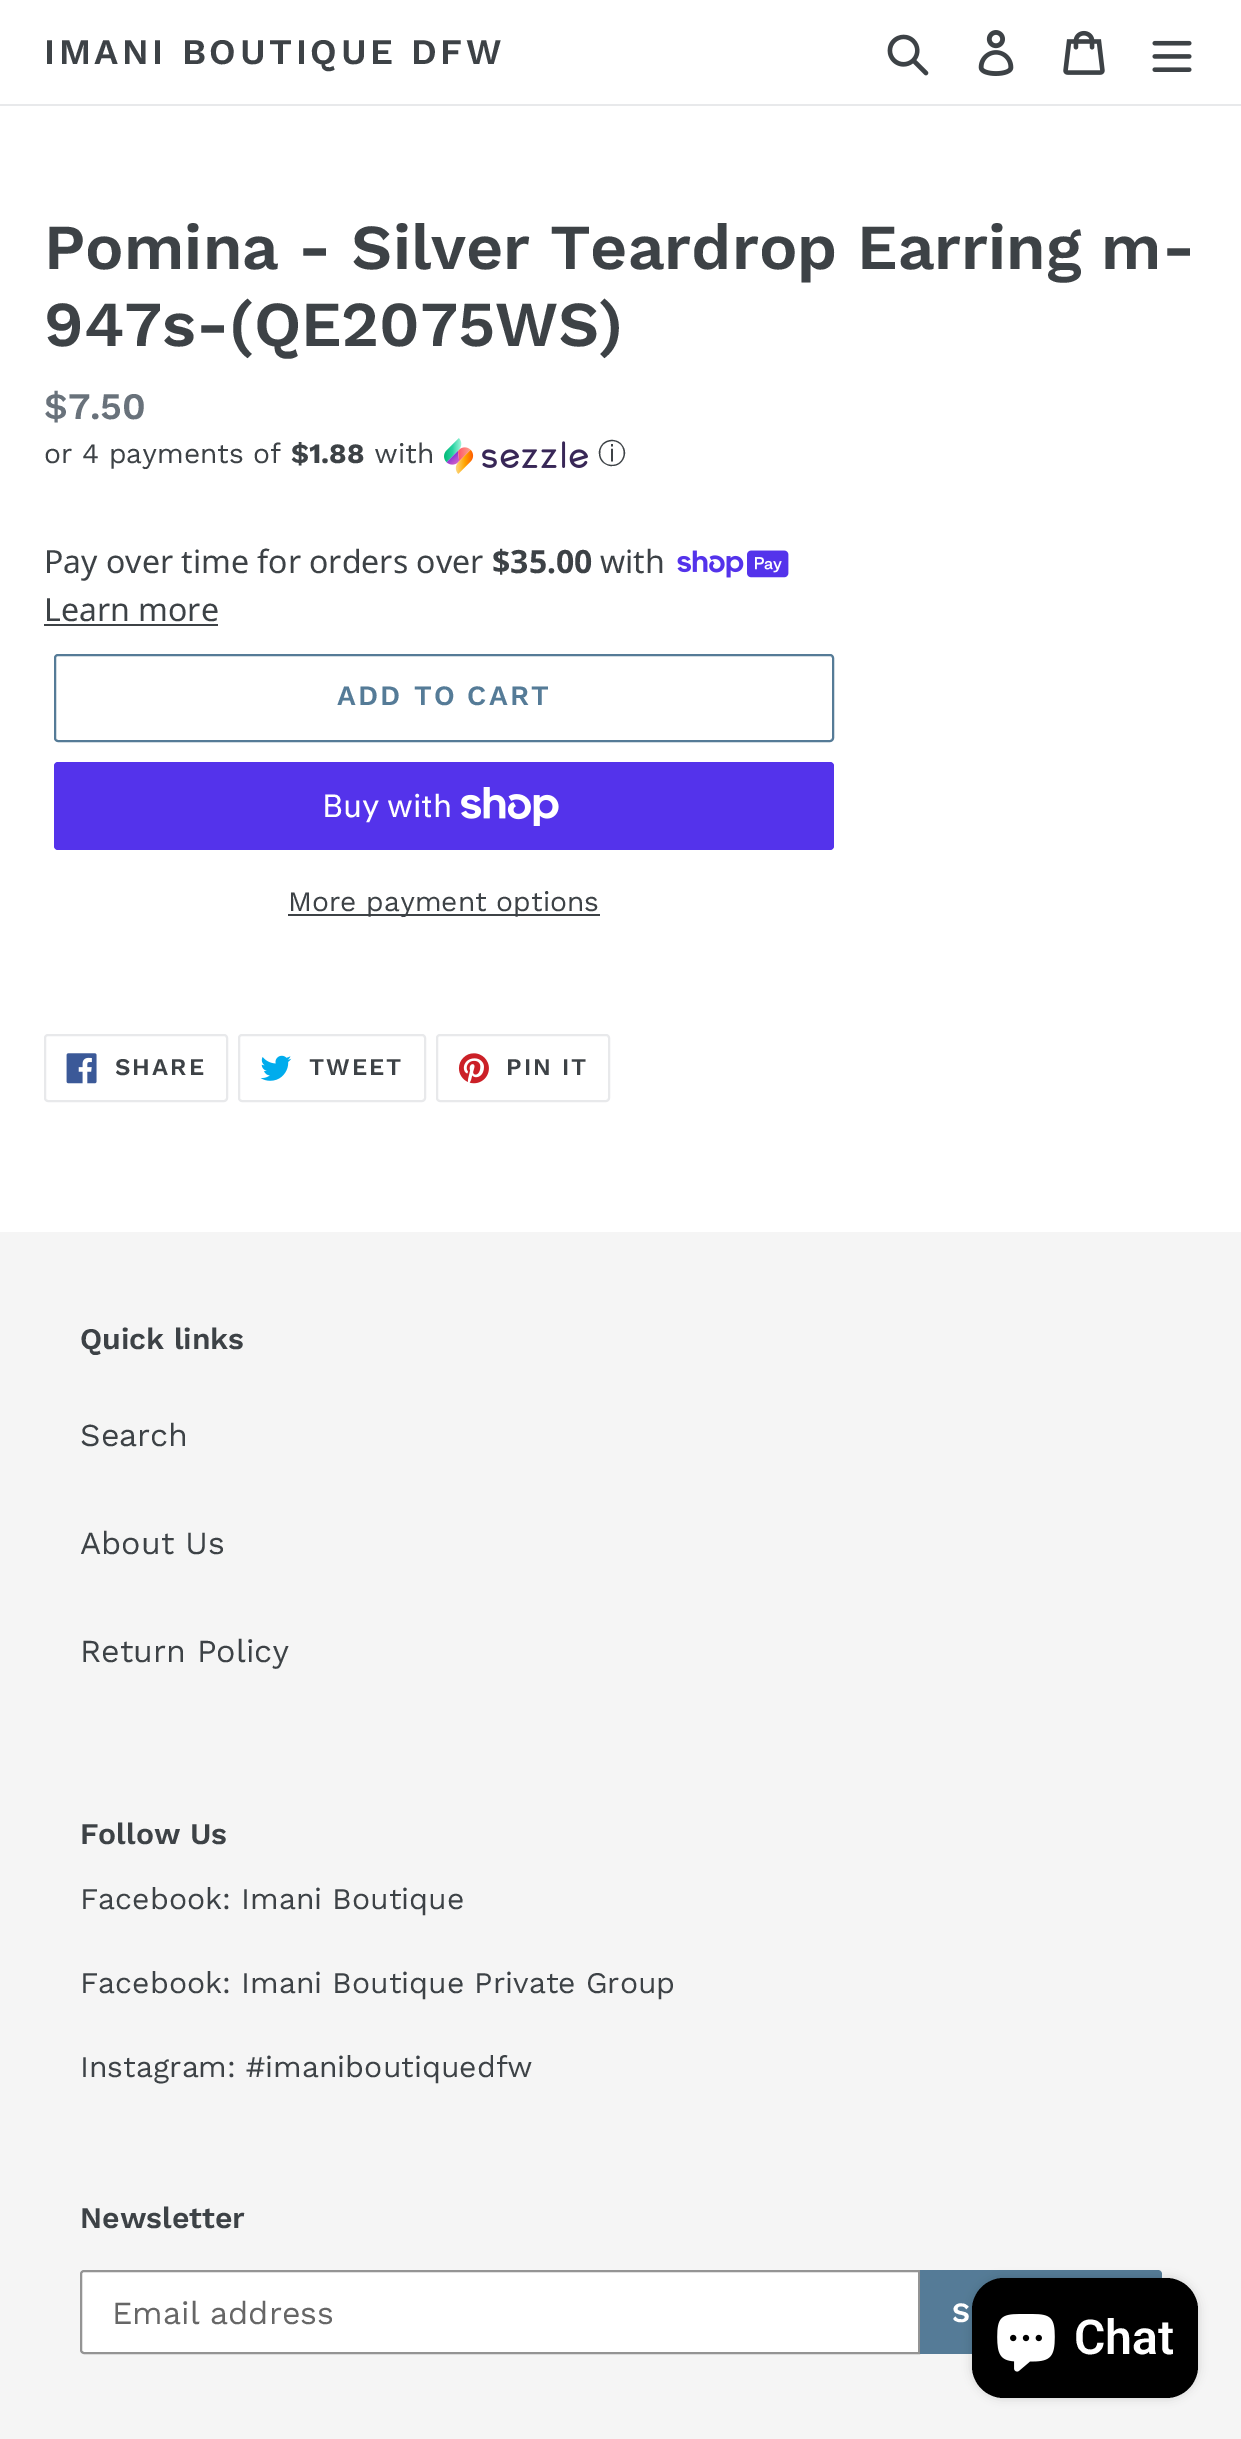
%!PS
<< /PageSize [1241 2439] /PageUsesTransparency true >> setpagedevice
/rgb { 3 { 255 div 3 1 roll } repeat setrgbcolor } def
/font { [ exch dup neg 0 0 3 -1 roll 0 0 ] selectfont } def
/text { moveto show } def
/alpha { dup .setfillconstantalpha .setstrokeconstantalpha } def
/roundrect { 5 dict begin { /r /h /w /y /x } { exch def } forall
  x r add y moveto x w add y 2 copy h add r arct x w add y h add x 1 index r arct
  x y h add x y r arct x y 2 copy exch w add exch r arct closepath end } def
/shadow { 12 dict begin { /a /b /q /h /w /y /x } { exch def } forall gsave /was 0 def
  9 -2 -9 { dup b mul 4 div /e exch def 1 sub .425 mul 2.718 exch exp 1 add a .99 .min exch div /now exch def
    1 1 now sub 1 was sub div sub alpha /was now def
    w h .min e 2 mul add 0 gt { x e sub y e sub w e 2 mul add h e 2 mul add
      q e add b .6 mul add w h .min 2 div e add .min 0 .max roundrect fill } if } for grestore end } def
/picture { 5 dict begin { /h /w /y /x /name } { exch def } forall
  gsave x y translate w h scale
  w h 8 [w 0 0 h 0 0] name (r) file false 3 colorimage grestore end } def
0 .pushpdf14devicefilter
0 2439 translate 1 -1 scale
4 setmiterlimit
255 255 255 rgb
0 0 1241 2439 rectfill
232 233 235 rgb
0 104 1241 2 rectfill
(img_01.rgb) 887 34 42 42 picture
(img_02.rgb) 978 30 36 46 picture
(img_03.rgb) 1063 30 42 45 picture
(img_04.rgb) 1152 40 40 32 picture
(img_05.rgb) 444 438 144 36 picture
(img_06.rgb) 677 550 112 28 picture
61 66 70 rgb
44 624 174 2 rectfill
85 123 151 rgb
2 setlinewidth
55 655 778 86 3 roundrect stroke
84 51 235 rgb
54 762 780 88 4 roundrect fill
(img_07.rgb) 461 787 98 39 picture
61 66 70 rgb
288 914 312 2 rectfill
232 233 235 rgb
45 1035 182 66 3 roundrect stroke
(img_08.rgb) 66 1053 31 31 picture
239 1035 186 66 3 roundrect stroke
(img_09.rgb) 260 1055 32 26 picture
437 1035 172 66 3 roundrect stroke
(img_10.rgb) 458 1053 31 31 picture
245 245 245 rgb
0 1232 1241 1207 rectfill
255 255 255 rgb
84 2271 moveto 835 0 rlineto 0 82 rlineto -835 0 rlineto -1.5 0 -3 -1.5 -3 -3 rcurveto 0 -76 rlineto 0 -1.5 1.5 -3 3 -3 rcurveto closepath gsave fill grestore
148 148 148 rgb
stroke
85 123 151 rgb
920 2270 moveto 238 0 rlineto 2 0 4 2 4 4 rcurveto 0 76 rlineto 0 2 -2 4 -4 4 rcurveto -238 0 rlineto closepath fill
0 0 0 rgb
972 2278 226 120 32 5 0.15 shadow
972 2278 226 120 32 roundrect fill
(img_11.rgb) 997 2314 58 58 picture
/WorkSans-SemiBold 36 font
61 66 70 rgb
44 64 moveto 3.6 0 (IMANI BOUTIQUE DFW) ashow
/WorkSans-SemiBold 64 font
(Pomina - Silver Teardrop Earring m-) 44 269 text
(947s-\(QE2075WS\)) 44 346 text
/WorkSans-SemiBold 37.5 font
105 114 123 rgb
($7.50) 44 419 text
/WorkSans-Regular 28 font
61 66 70 rgb
(or 4 payments of) 44 463 text
/WorkSans-Bold 28 font
($1.88) 291 463 text
/WorkSans-Regular 28 font
(with) 374 463 text
/WenQuanYiZenHei-Medium 28 font
(ⓘ) 598 463 text
/NotoSans-Regular 32 font
(Pay over time for orders over) 44 573 text
/NotoSans-Bold 32 font
($35.00) 492 573 text
/NotoSans-Regular 32 font
(with) 600 573 text
(Learn more) 44 621 text
/WorkSans-SemiBold 28 font
85 123 151 rgb
337 705 moveto 2.25 0 (ADD TO CART) ashow
/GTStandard-Regular 32 font
255 255 255 rgb
(Buy with) 322 817 text
/WorkSans-Regular 28 font
61 66 70 rgb
(More payment options) 288 911 text
/WorkSans-SemiBold 24 font
115 1075 moveto 2 0 (SHARE) ashow
309 1075 moveto 2 0 (TWEET) ashow
506 1075 moveto 2 0 (PIN IT) ashow
/WorkSans-SemiBold 30 font
(Quick links) 80 1349 text
/WorkSans-Regular 32 font
(Search) 80 1446 text
(About Us) 80 1554 text
(Return Policy) 80 1662 text
/WorkSans-SemiBold 30 font
(Follow Us) 80 1844 text
/WorkSans-Regular 30 font
(Facebook: Imani Boutique) 80 1909 text
(Facebook: Imani Boutique Private Group) 80 1993 text
(Instagram: #imaniboutiquedfw) 80 2077 text
/WorkSans-SemiBold 30 font
(Newsletter) 80 2228 text
/WorkSans-Regular 32 font
102 102 102 rgb
(Email address) 112 2324 text
/WorkSans-SemiBold 28 font
255 255 255 rgb
952 2322 moveto 2.25 0 (S) ashow
/Roboto-SemiBold 48 font
(Chat) 1074 2354 text
.poppdf14devicefilter showpage
